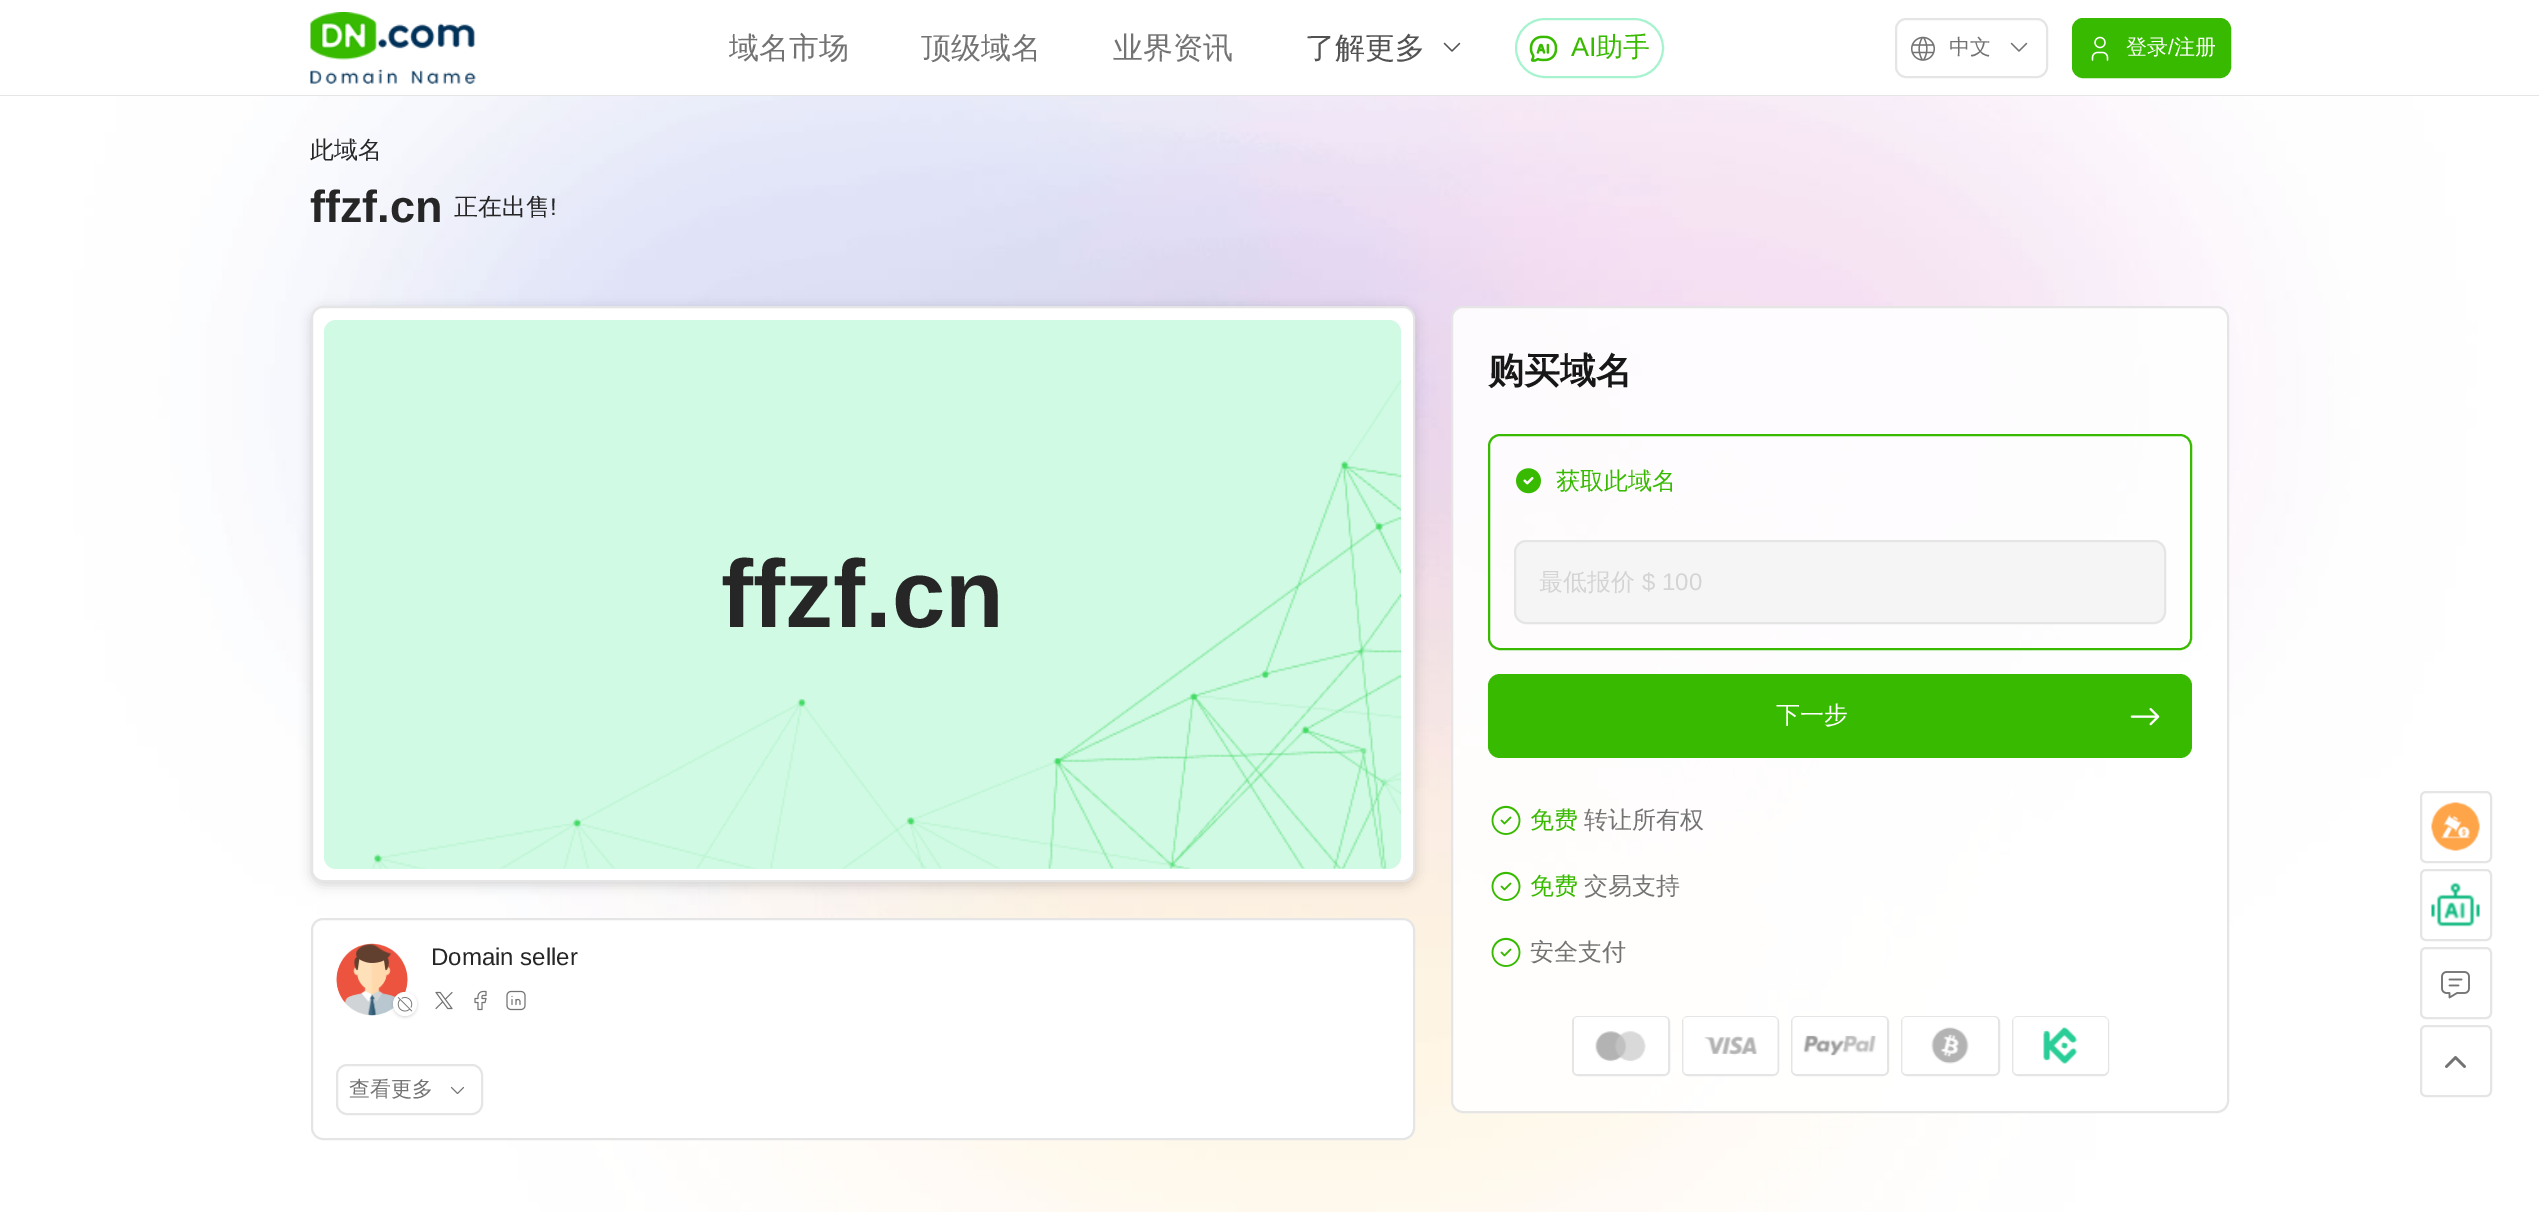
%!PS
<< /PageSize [2539 1216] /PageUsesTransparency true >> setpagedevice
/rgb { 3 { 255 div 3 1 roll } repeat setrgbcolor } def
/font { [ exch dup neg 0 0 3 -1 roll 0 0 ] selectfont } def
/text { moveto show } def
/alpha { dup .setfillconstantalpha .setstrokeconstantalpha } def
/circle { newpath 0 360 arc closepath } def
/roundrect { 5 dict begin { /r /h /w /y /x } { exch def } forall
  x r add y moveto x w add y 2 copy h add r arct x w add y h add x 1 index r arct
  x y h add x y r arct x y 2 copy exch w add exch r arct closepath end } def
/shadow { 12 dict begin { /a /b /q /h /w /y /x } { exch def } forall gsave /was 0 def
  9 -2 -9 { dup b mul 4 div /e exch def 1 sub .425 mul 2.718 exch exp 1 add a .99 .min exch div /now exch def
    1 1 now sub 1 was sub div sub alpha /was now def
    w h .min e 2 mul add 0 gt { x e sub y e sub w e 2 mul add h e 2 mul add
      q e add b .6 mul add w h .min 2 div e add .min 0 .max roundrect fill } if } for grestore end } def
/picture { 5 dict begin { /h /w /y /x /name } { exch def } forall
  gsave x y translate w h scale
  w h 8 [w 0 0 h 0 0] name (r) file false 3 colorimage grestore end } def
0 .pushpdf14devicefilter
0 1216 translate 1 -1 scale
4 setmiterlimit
255 255 255 rgb
0 0 2539 1216 rectfill
229 229 229 rgb
0 95 2539 1 rectfill
(img_01.rgb) 310 12 166 72 picture
(img_02.rgb) 1443 42 18 10 picture
167 243 208 rgb
2 setlinewidth
1516 19 147 58 29 roundrect stroke
(img_03.rgb) 1529 35 29 27 picture
229 229 229 rgb
1896 19 151 58 10 roundrect stroke
(img_04.rgb) 1911 36 24 25 picture
(img_05.rgb) 2010 42 18 10 picture
55 186 0 rgb
2073 19 157 58 10 roundrect gsave fill grestore
stroke
(img_06.rgb) 2091 36 18 25 picture
(img_07.rgb) 0 96 2539 1116 picture
0 0 0 rgb
311 309 1104 576 12 6 0.16 shadow
255 255 255 rgb
312 307 1102 574 11 roundrect gsave fill grestore
229 229 229 rgb
stroke
209 250 229 rgb
324 320 1077 549 12 roundrect fill
(img_08.rgb) 371 380 1030 489 picture
255 255 255 rgb
312 919 1102 220 11 roundrect gsave fill grestore
229 229 229 rgb
stroke
(img_09.rgb) 336 943 72 73 picture
0 0 0 rgb
393 993 24 24 12 1.5 0.16 shadow
255 255 255 rgb
405 1004 12 circle fill
(img_10.rgb) 397 997 16 15 picture
(img_11.rgb) 435 991 18 19 picture
(img_12.rgb) 474 990 13 21 picture
(img_13.rgb) 506 990 20 21 picture
229 229 229 rgb
337 1065 145 49 10 roundrect stroke
(img_14.rgb) 450 1086 14 9 picture
0.9 alpha
255 255 255 rgb
1452 307 776 805 11 roundrect fill
1 alpha
229 229 229 rgb
1452 307 776 805 11 roundrect stroke
55 186 0 rgb
1489 435 702 214 11 roundrect stroke
(img_15.rgb) 1516 468 25 26 picture
245 245 245 rgb
1515 541 650 82 11 roundrect gsave fill grestore
229 229 229 rgb
stroke
55 186 0 rgb
1488 674 704 84 12 roundrect fill
(img_16.rgb) 2130 708 30 18 picture
(img_17.rgb) 1491 805 30 30 picture
(img_18.rgb) 1491 871 30 30 picture
(img_19.rgb) 1491 937 30 30 picture
229 229 229 rgb
1573 1017 96 58 5 roundrect stroke
(img_20.rgb) 1574 1017 94 57 picture
1683 1017 95 58 5 roundrect stroke
(img_21.rgb) 1683 1017 95 57 picture
1792 1017 96 58 5 roundrect stroke
(img_22.rgb) 1792 1017 95 57 picture
1902 1017 97 58 5 roundrect stroke
(img_23.rgb) 1902 1017 96 57 picture
2013 1017 95 58 5 roundrect stroke
(img_24.rgb) 2013 1017 95 57 picture
2421 792 70 70 5 roundrect stroke
(img_25.rgb) 2431 802 49 49 picture
2421 870 70 70 5 roundrect stroke
(img_26.rgb) 2431 882 49 45 picture
2421 948 70 70 5 roundrect stroke
(img_27.rgb) 2441 971 29 28 picture
2421 1026 70 70 5 roundrect stroke
(img_28.rgb) 2445 1056 21 12 picture
/WenQuanYiZenHei-Medium 30 font
115 115 115 rgb
(域名市场) 729 58 text
(顶级域名) 921 58 text
(业界资讯) 1113 58 text
82 82 82 rgb
(了解更多) 1305 58 text
/LiberationSans-Regular 27 font
55 186 0 rgb
(AI) 1571 56 text
/WenQuanYiZenHei-Medium 27 font
(助手) 1596 56 text
/WenQuanYiZenHei-Medium 21 font
115 115 115 rgb
(中文) 1949 54 text
255 255 255 rgb
(登录) 2126 54 text
/LiberationSans-Regular 21 font
(/) 2168 54 text
/WenQuanYiZenHei-Medium 21 font
(注册) 2174 54 text
/WenQuanYiZenHei-Medium 24 font
38 38 38 rgb
(此域名) 310 158 text
/LiberationSans-Bold 45 font
(ffzf.cn) 310 222 text
/WenQuanYiZenHei-Medium 24 font
(正在出售) 454 215 text
/LiberationSans-Regular 24 font
(!) 550 215 text
/LiberationSans-Bold 96 font
(ffzf.cn) 721 627 text
/LiberationSans-Regular 24 font
(Domain seller) 431 965 text
/WenQuanYiZenHei-Medium 21 font
115 115 115 rgb
(查看更多) 349 1096 text
/WenQuanYiZenHei-Bold 36 font
23 23 23 rgb
(购买域名) 1488 383 text
/WenQuanYiZenHei-Medium 24 font
55 186 0 rgb
(获取此域名) 1556 489 text
212 212 212 rgb
(最低报价) 1539 590 text
/LiberationSans-Regular 24 font
($ 100) 1642 590 text
/WenQuanYiZenHei-Medium 24 font
255 255 255 rgb
(下一步) 1776 723 text
55 186 0 rgb
(免费) 1530 828 text
115 115 115 rgb
(转让所有权) 1584 828 text
55 186 0 rgb
(免费) 1530 894 text
115 115 115 rgb
(交易支持) 1584 894 text
(安全支付) 1530 960 text
.poppdf14devicefilter showpage
